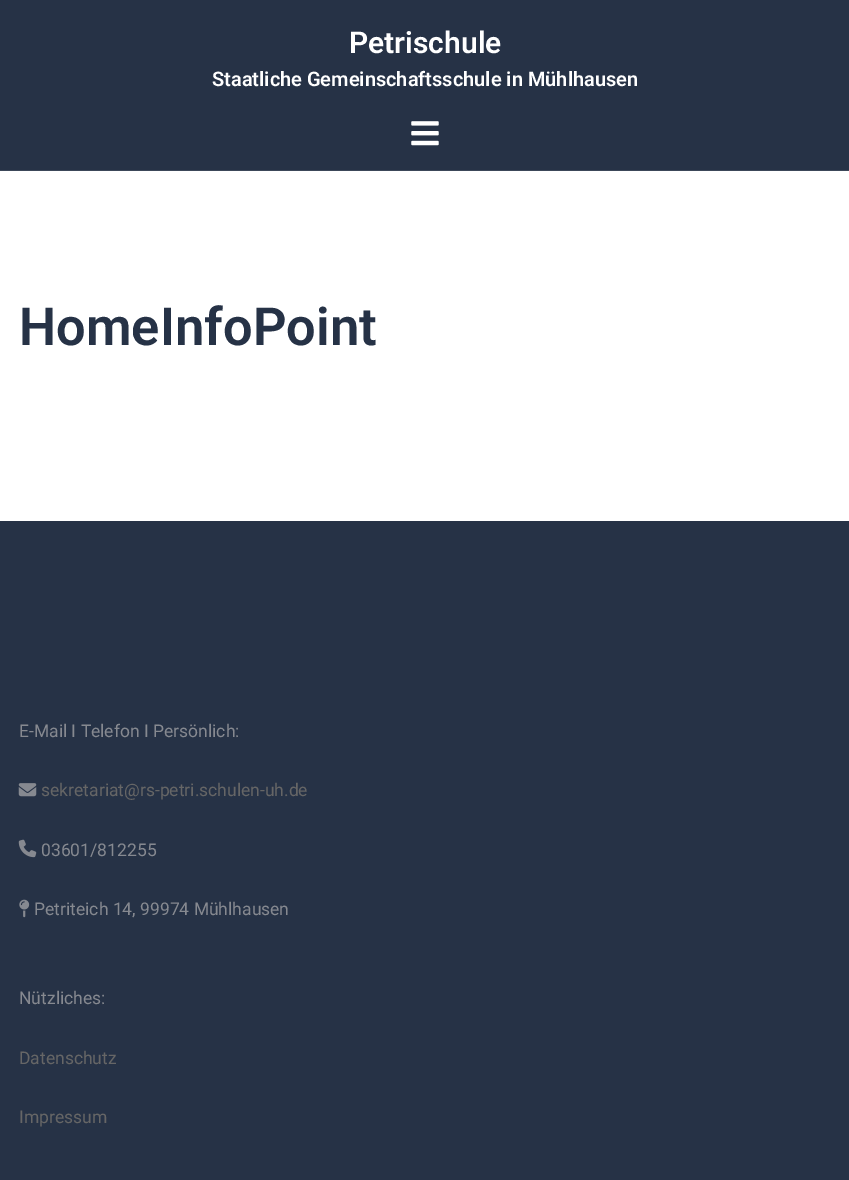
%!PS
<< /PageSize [849 1180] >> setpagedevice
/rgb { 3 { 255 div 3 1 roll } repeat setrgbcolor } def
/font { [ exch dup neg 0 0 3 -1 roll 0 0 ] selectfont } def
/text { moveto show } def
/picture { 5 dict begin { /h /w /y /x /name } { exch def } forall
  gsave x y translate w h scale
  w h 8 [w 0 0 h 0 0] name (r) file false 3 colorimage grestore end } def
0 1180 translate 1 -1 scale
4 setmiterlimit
255 255 255 rgb
0 0 849 1180 rectfill
38 50 70 rgb
0 0 849 170 rectfill
60 71 89 rgb
0 170 849 1 rectfill
(img_01.rgb) 411 121 28 25 picture
38 50 70 rgb
0 521 849 659 rectfill
(img_02.rgb) 18 783 19 14 picture
(img_03.rgb) 18 839 19 19 picture
(img_04.rgb) 19 899 11 19 picture
/Roboto-SemiBold 30 font
255 255 255 rgb
(Petrischule) 349 53 text
/Roboto-SemiBold 20 font
(Staatliche Gemeinschaftsschule in Mühlhausen) 212 86 text
/Roboto-SemiBold 52.5 font
38 50 70 rgb
(HomeInfoPoint) 19 345 text
/Roboto-Regular 17.5 font
134 137 144 rgb
(E-Mail I Telefon I Persönlich:) 19 737 text
102 102 102 rgb
(sekretariat@rs-petri.schulen-uh.de) 41 796 text
134 137 144 rgb
(03601/812255) 41 856 text
(Petriteich 14, 99974 Mühlhausen) 34 915 text
(Nützliches:) 19 1004 text
102 102 102 rgb
(Datenschutz) 19 1064 text
(Impressum) 19 1123 text
showpage
